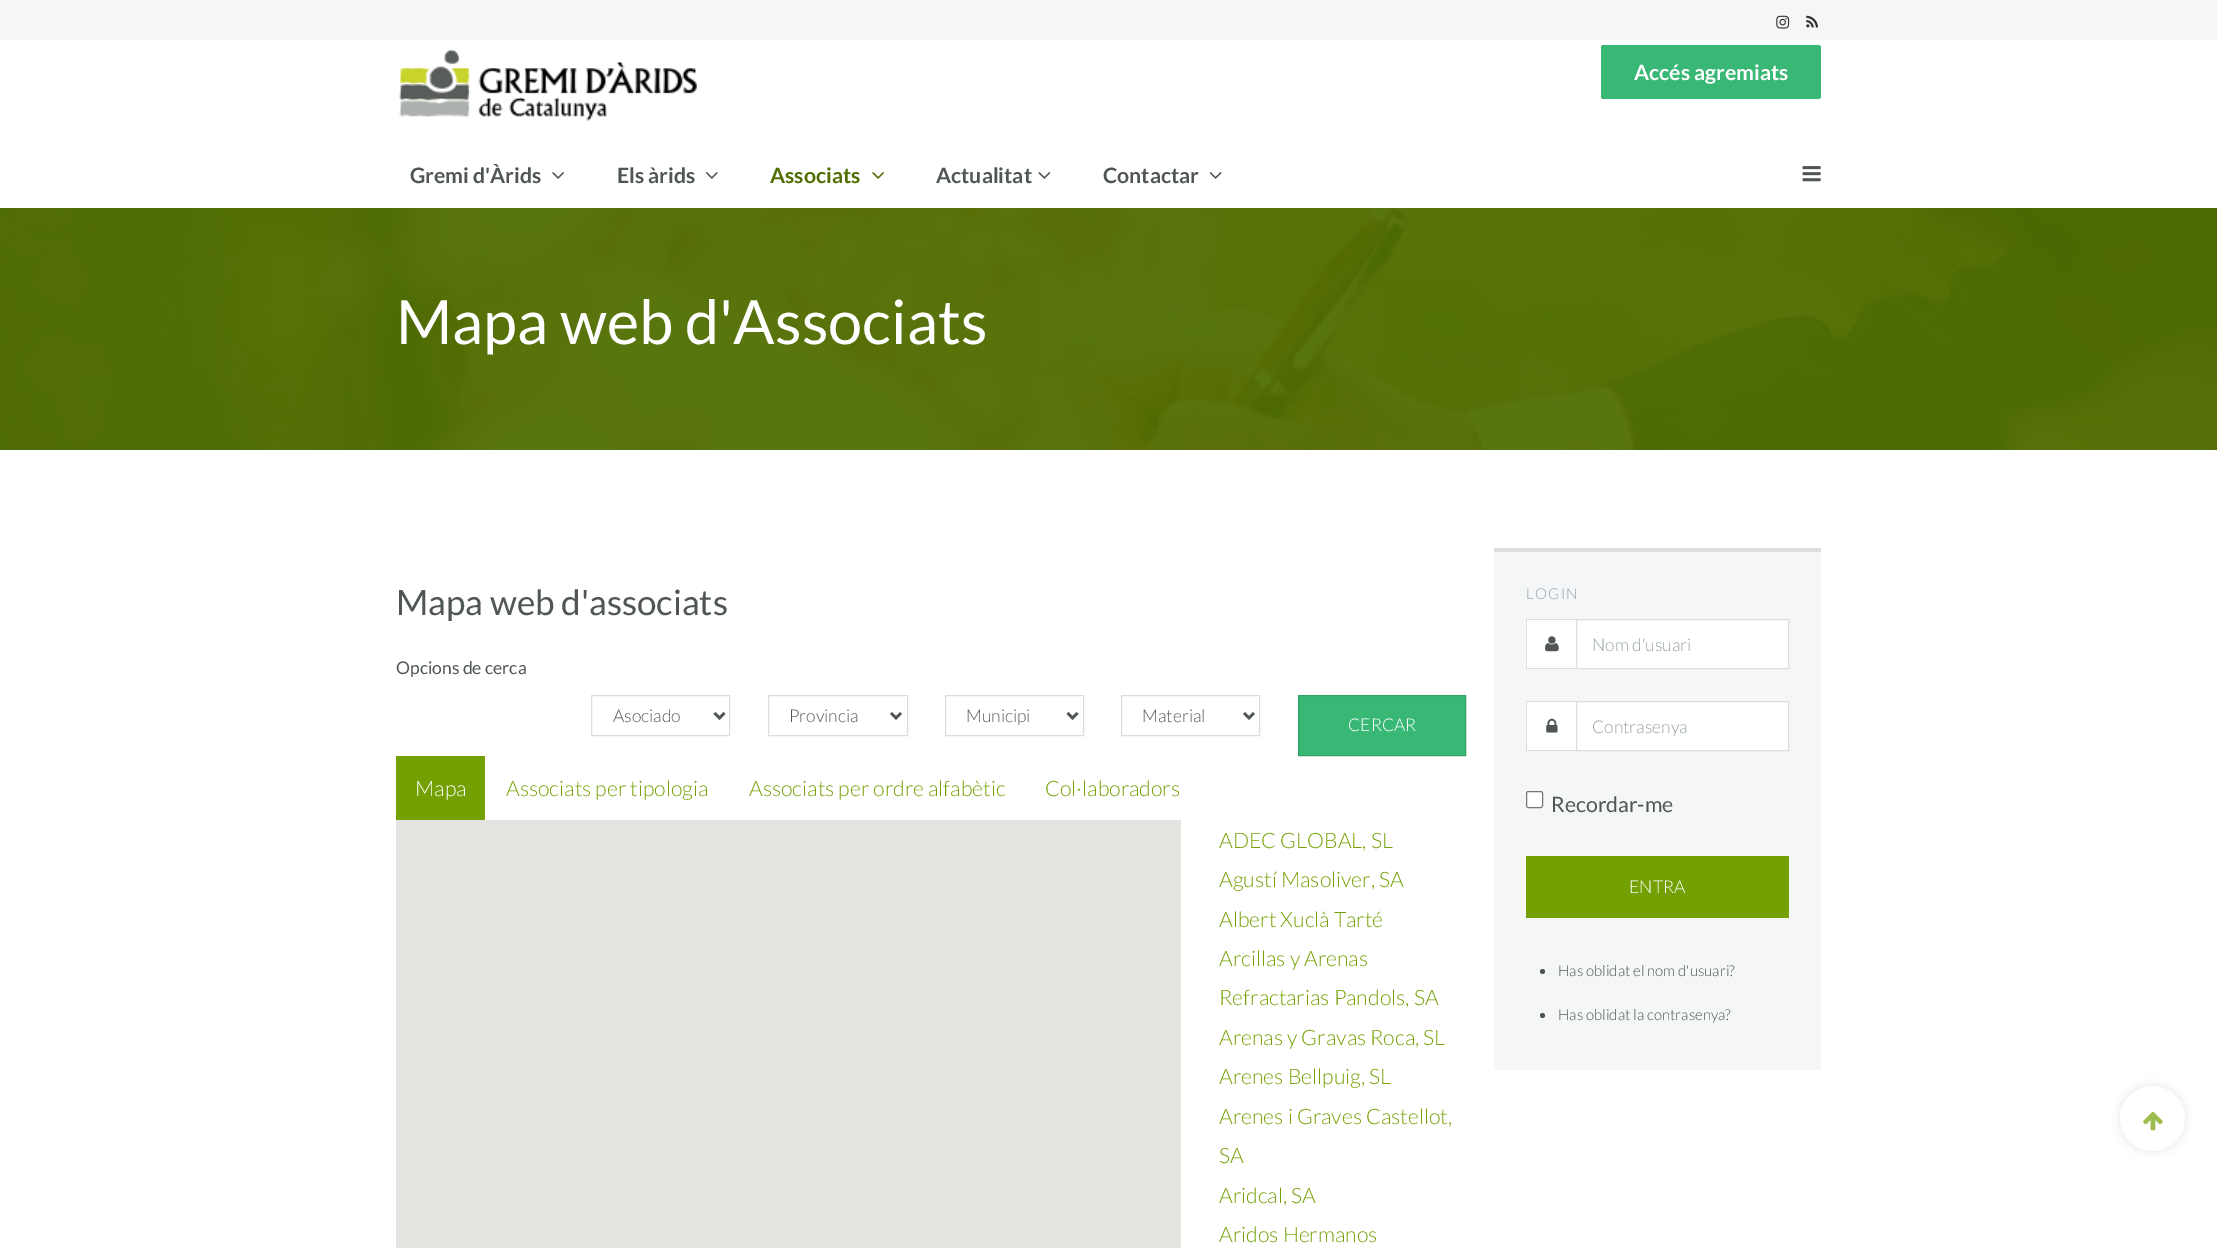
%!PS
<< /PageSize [2217 1248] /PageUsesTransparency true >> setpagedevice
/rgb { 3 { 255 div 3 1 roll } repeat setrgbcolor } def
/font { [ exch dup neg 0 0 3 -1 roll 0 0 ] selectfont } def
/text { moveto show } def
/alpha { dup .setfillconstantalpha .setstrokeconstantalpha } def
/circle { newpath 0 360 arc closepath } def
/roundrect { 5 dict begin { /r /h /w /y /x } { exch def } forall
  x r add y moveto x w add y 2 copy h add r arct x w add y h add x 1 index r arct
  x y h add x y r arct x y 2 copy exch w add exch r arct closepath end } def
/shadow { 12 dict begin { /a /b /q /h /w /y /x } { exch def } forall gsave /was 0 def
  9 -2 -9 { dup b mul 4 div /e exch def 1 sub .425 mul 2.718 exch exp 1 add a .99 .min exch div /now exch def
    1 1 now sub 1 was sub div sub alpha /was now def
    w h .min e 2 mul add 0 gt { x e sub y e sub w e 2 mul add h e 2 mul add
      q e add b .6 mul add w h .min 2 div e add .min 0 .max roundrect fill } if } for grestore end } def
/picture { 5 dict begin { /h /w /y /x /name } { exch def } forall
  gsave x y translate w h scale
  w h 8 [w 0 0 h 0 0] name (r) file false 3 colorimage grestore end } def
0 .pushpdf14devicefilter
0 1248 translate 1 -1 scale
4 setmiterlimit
255 255 255 rgb
0 0 2217 1248 rectfill
244 246 247 rgb
0 0 2217 40 rectfill
(img_01.rgb) 1776 15 14 14 picture
(img_02.rgb) 1806 15 12 13 picture
(img_03.rgb) 399 49 298 72 picture
56 183 117 rgb
1601 45 220 54 2.5 roundrect fill
(img_04.rgb) 552 172 12 7 picture
(img_05.rgb) 706 172 12 7 picture
(img_06.rgb) 872 172 12 7 picture
(img_07.rgb) 1038 172 13 7 picture
(img_08.rgb) 1209 172 13 7 picture
(img_09.rgb) 1802 166 19 16 picture
(img_10.rgb) 0 208 2217 242 picture
221 221 221 rgb
591.5 695.5 138 40 rectstroke
80 86 86 rgb
2.5 setlinewidth
714.5 713 moveto 5 5 rlineto 5 -5 rlineto stroke
221 221 221 rgb
1 setlinewidth
768.5 695.5 139 40 rectstroke
80 86 86 rgb
2.5 setlinewidth
891 713 moveto 5 5 rlineto 5 -5 rlineto stroke
221 221 221 rgb
1 setlinewidth
945.5 695.5 138 40 rectstroke
80 86 86 rgb
2.5 setlinewidth
1067.5 713 moveto 5 5 rlineto 5 -5 rlineto stroke
221 221 221 rgb
1 setlinewidth
1121.5 695.5 138 40 rectstroke
80 86 86 rgb
2.5 setlinewidth
1244 713 moveto 5 5 rlineto 5 -5 rlineto stroke
56 183 117 rgb
1298.5 695.5 moveto 167 0 rlineto 0 60 rlineto -167 0 rlineto closepath gsave fill grestore
50 163 105 rgb
1 setlinewidth
stroke
116 160 3 rgb
396 756 89 64 rectfill
229 227 223 rgb
396 820 785 428 rectfill
244 246 247 rgb
1494 552 327 518 rectfill
218 222 223 rgb
1494 548 327 4 rectfill
255 255 255 rgb
1527 620 49 48 rectfill
221 221 221 rgb
1526 619 50 1 rectfill
1526 668 50 1 rectfill
1526 619 1 50 rectfill
(img_11.rgb) 1545 636 14 16 picture
255 255 255 rgb
1576.5 619.5 moveto 212 0 rlineto 0 49 rlineto -212 0 rlineto closepath gsave fill grestore
221 221 221 rgb
stroke
255 255 255 rgb
1527 702 49 48 rectfill
221 221 221 rgb
1526 701 50 1 rectfill
1526 750 50 1 rectfill
1526 701 1 50 rectfill
(img_12.rgb) 1546 718 12 15 picture
255 255 255 rgb
1576.5 701.5 moveto 212 0 rlineto 0 49 rlineto -212 0 rlineto closepath gsave fill grestore
221 221 221 rgb
stroke
255 255 255 rgb
1526.5 791.5 16 16 2 roundrect gsave fill grestore
118 118 118 rgb
stroke
116 160 3 rgb
1526 856 263 62 rectfill
80 86 86 rgb
1542.5 971.5 2.5 circle fill
1542.5 1015.5 2.5 circle fill
gsave
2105 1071 moveto 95 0 rlineto 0 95 rlineto -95 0 rlineto closepath 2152.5 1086 moveto 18 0 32.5 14.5 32.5 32.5 rcurveto 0 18 -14.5 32.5 -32.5 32.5 rcurveto -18 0 -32.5 -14.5 -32.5 -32.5 rcurveto 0 -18 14.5 -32.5 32.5 -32.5 rcurveto closepath eoclip newpath
77 77 77 rgb
2120 1086 65 65 32.5 4.5 0.15 shadow
grestore
0.9 alpha
255 255 255 rgb
2152.5 1118.5 32.5 circle fill
1 alpha
(img_13.rgb) 2143 1111 20 20 picture
/Lato-Bold 21.25 font
(Accés agremiats) 1634 80 text
80 86 86 rgb
(Gremi d'Àrids) 410 183 text
(Els àrids) 617 183 text
80 110 2 rgb
(Associats) 770 183 text
80 86 86 rgb
(Actualitat) 936 183 text
(Contactar) 1103 183 text
/Lato-Regular 61.25 font
255 255 255 rgb
(Mapa web d'Associats) 396 344 text
/Lato-Regular 35 font
80 86 86 rgb
(Mapa web d'associats) 396 615 text
/Lato-Regular 17.5 font
(Opcions de cerca) 396 674 text
/Lato-Light 17.5 font
(Asociado) 613 722 text
(Provincia) 789 722 text
(Municipi) 966 722 text
(Material) 1142 722 text
255 255 255 rgb
(CERCAR) 1348 731 text
/Lato-Light 21.25 font
(Mapa) 415 796 text
116 160 3 rgb
(Associats per tipologia) 506 796 text
(Associats per ordre alfabètic) 749 796 text
(Col·laboradors) 1045 796 text
(ADEC GLOBAL, SL) 1219 848 text
(Agustí Masoliver, SA) 1219 887 text
(Albert Xuclà Tarté) 1219 927 text
(Arcillas y Arenas) 1219 966 text
(Refractarias Pandols, SA) 1219 1005 text
(Arenas y Gravas Roca, SL) 1219 1045 text
(Arenes Bellpuig, SL) 1219 1084 text
(Arenes i Graves Castellot,) 1219 1124 text
(SA) 1219 1163 text
(Aridcal, SA) 1219 1203 text
(Aridos Hermanos) 1219 1242 text
/Lato-Light 15 font
150 161 163 rgb
1526 599 moveto 1.25 0 (LOGIN) ashow
/Lato-Light 17.5 font
(Nom d'usuari) 1592 651 text
(Contrasenya) 1592 733 text
/Lato-Regular 21.25 font
80 86 86 rgb
(Recordar-me) 1551 812 text
/Lato-Light 17.5 font
255 255 255 rgb
(ENTRA) 1629 893 text
/Lato-Light 15 font
80 86 86 rgb
(Has oblidat el nom d'usuari?) 1558 976 text
(Has oblidat la contrasenya?) 1558 1020 text
.poppdf14devicefilter showpage
